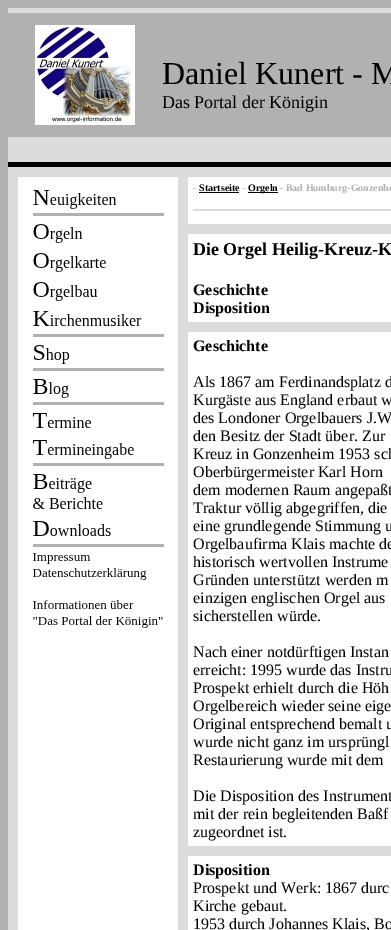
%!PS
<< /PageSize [391 930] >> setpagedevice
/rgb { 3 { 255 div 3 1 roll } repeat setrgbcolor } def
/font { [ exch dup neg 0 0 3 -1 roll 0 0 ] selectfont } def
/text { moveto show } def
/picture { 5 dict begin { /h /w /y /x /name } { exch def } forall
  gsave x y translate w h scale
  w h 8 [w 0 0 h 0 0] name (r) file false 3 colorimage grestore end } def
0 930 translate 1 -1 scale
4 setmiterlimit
177 177 177 rgb
0 0 391 930 rectfill
220 220 220 rgb
8 8 383 5 rectfill
(img_01.rgb) 35 25 100 100 picture
8 137 383 25 rectfill
0 0 0 rgb
8 162 383 5 rectfill
220 220 220 rgb
8 167 383 763 rectfill
255 255 255 rgb
18 177 160 753 rectfill
(img_02.rgb) 32 190 132 438 picture
188 177 203 47 rectfill
0 0 0 rgb
199 192 40 1 rectfill
248 192 30 1 rectfill
220 220 220 rgb
193 209 198 2 rectfill
255 255 255 rgb
188 234 203 88 rectfill
188 332 203 514 rectfill
188 856 203 74 rectfill
/LiberationSerif-Regular 32 font
0 0 0 rgb
(Daniel Kunert - M) 162 84 text
/LiberationSerif-Regular 18 font
(Das Portal der Königin) 162 108 text
/LiberationSerif-Bold 10 font
177 177 177 rgb
(-) 193 191 text
0 0 0 rgb
(Startseite) 199 191 text
177 177 177 rgb
(-) 242 191 text
0 0 0 rgb
(Orgeln) 248 191 text
177 177 177 rgb
(- Bad Homburg-Gonzenhe) 280 191 text
/LiberationSerif-Bold 18 font
0 0 0 rgb
(Die Orgel Heilig-Kreuz-K) 193 255 text
/LiberationSerif-Bold 16 font
(Geschichte) 193 295 text
(Disposition) 193 313 text
(Geschichte) 193 351 text
/LiberationSerif-Regular 16 font
(Als 1867 am Ferdinandsplatz d) 193 387 text
(Kurgäste aus England erbaut w) 193 405 text
(des Londoner Orgelbauers J.W) 193 423 text
(den Besitz der Stadt über. Zur) 193 441 text
(Kreuz in Gonzenheim 1953 sch) 193 459 text
(Oberbürgermeister Karl Horn) 193 477 text
(dem modernen Raum angepaßt) 193 495 text
(Traktur völlig abgegriffen, die) 193 513 text
(eine grundlegende Stimmung u) 193 531 text
(Orgelbaufirma Klais machte de) 193 549 text
(historisch wertvollen Instrume) 193 567 text
(Gründen unterstützt werden m) 193 585 text
(einzigen englischen Orgel aus) 193 603 text
(sicherstellen würde.) 193 621 text
(Nach einer notdürftigen Instan) 193 657 text
(erreicht: 1995 wurde das Instru) 193 675 text
(Prospekt erhielt durch die Höh) 193 693 text
(Orgelbereich wieder seine eige) 193 711 text
(Original entsprechend bemalt u) 193 729 text
(wurde nicht ganz im ursprüngl) 193 747 text
(Restaurierung wurde mit dem) 193 765 text
(Die Disposition des Instrument) 193 801 text
(mit der rein begleitenden Baßf) 193 819 text
(zugeordnet ist.) 193 837 text
/LiberationSerif-Bold 16 font
(Disposition) 193 875 text
/LiberationSerif-Regular 16 font
(Prospekt und Werk: 1867 durc) 193 893 text
(Kirche gebaut.) 193 911 text
(1953 durch Johannes Klais, Bo) 193 929 text
showpage
